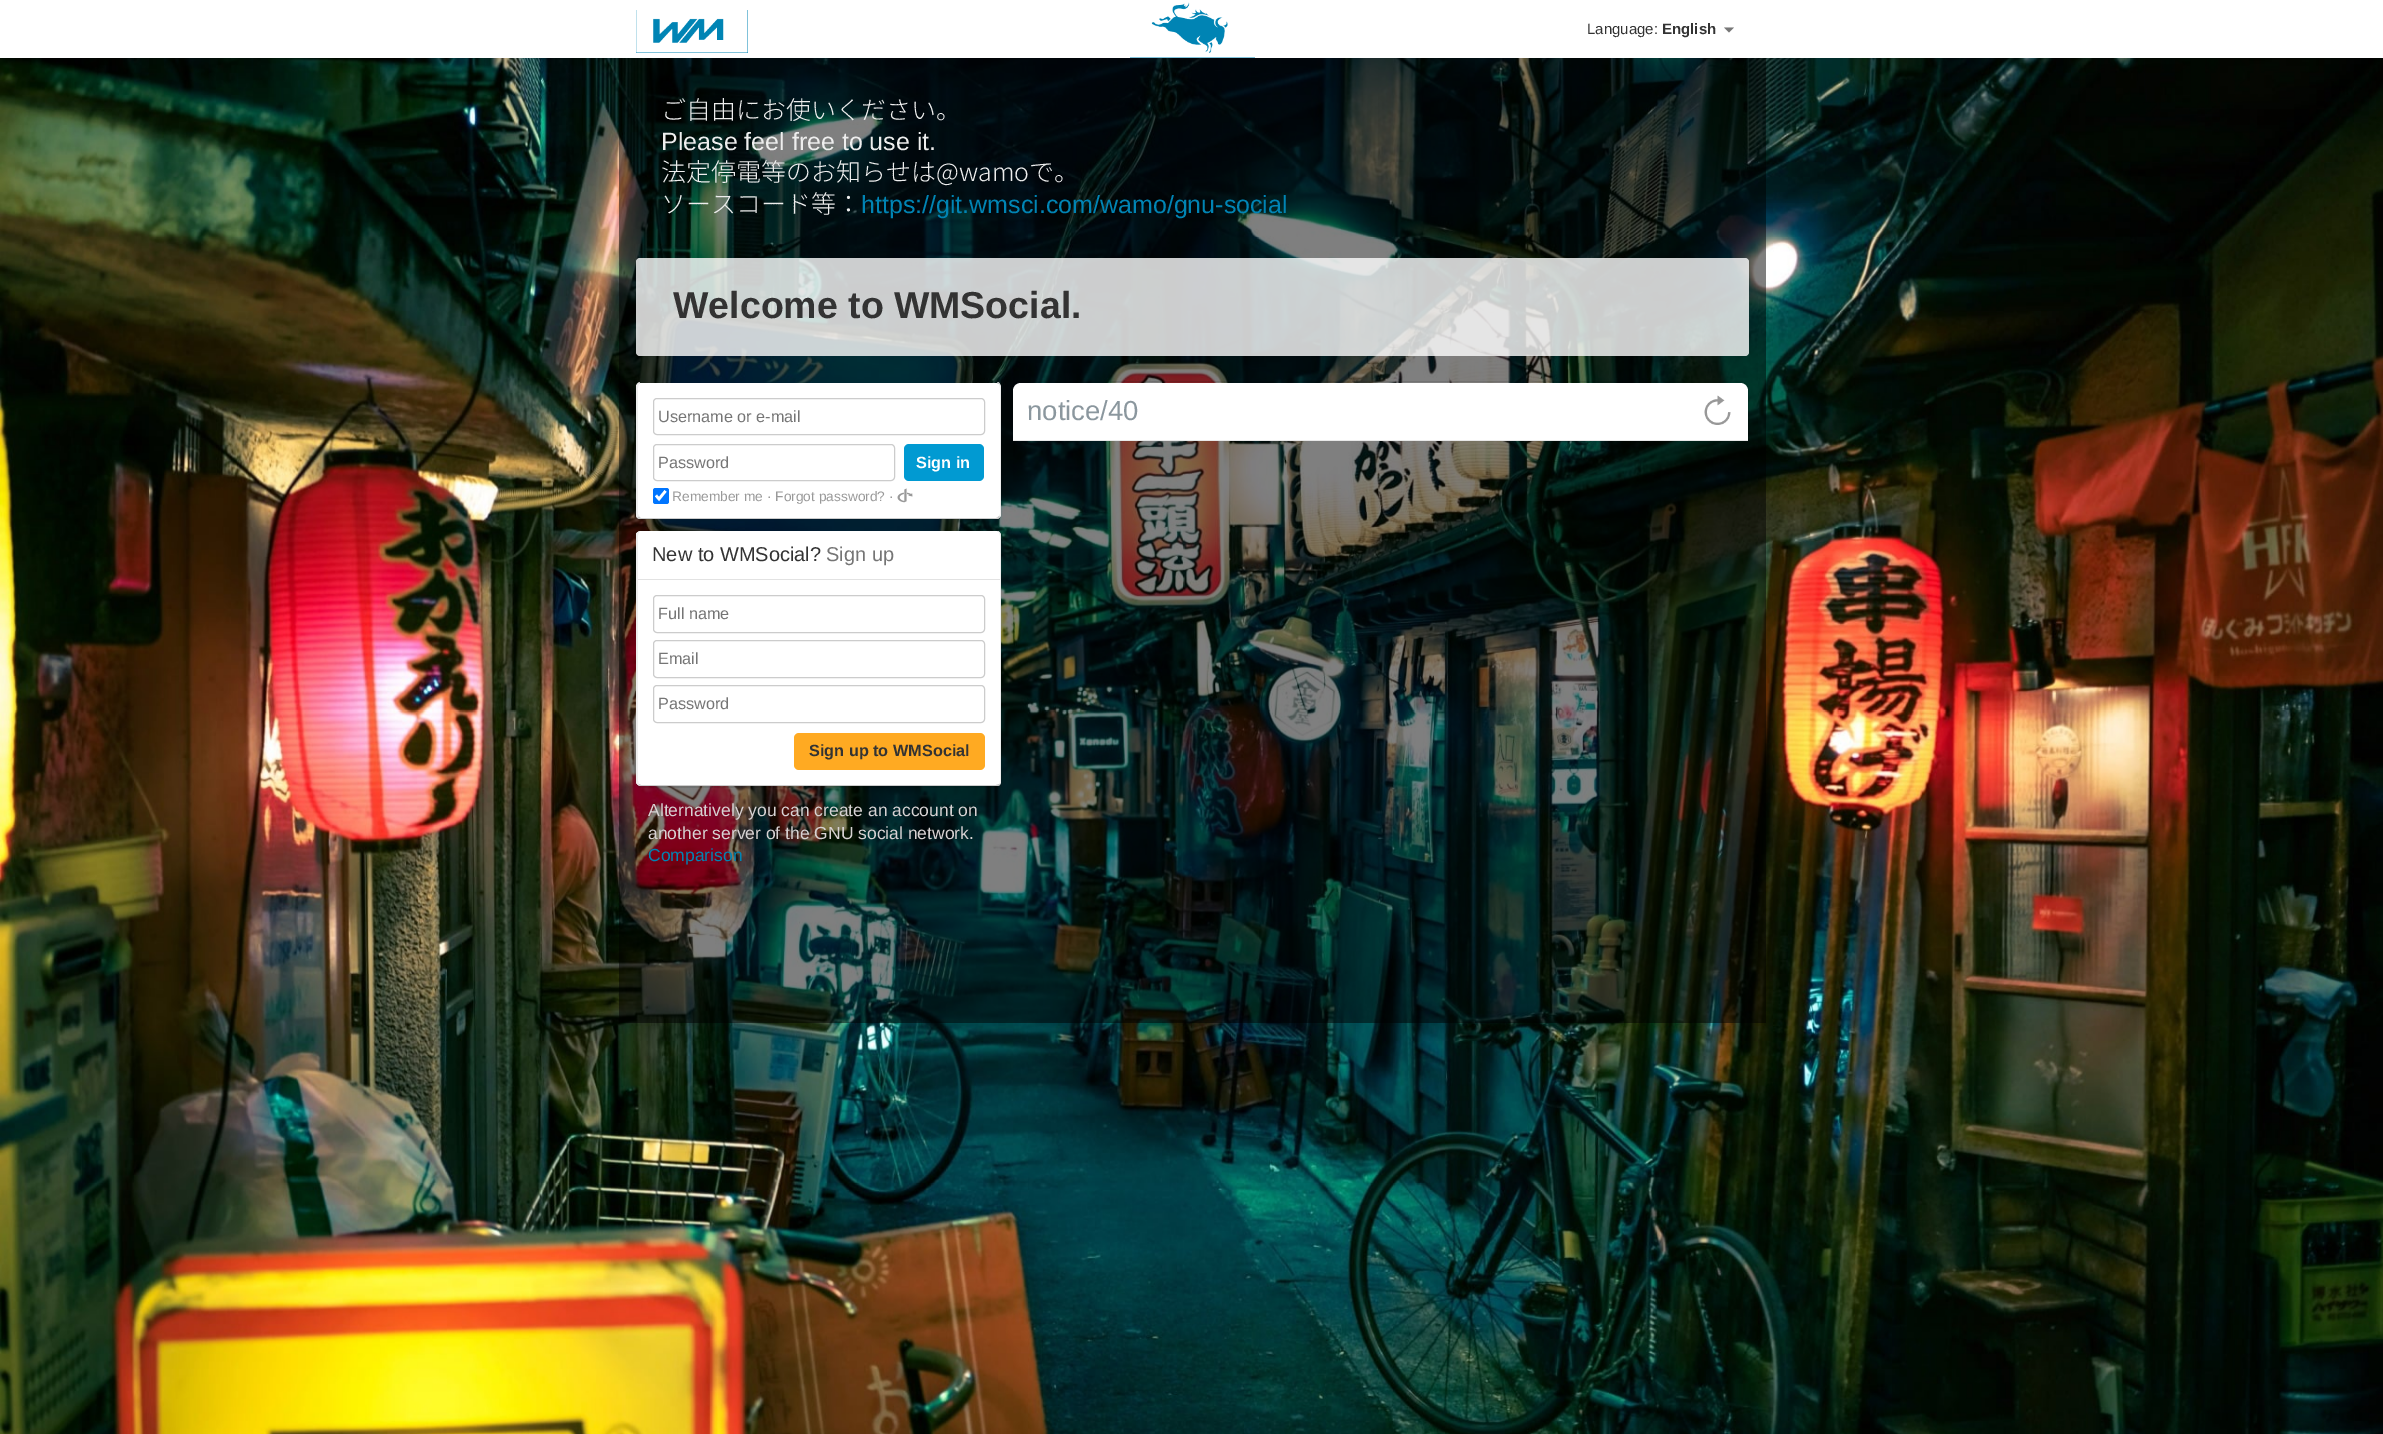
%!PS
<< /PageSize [2383 1434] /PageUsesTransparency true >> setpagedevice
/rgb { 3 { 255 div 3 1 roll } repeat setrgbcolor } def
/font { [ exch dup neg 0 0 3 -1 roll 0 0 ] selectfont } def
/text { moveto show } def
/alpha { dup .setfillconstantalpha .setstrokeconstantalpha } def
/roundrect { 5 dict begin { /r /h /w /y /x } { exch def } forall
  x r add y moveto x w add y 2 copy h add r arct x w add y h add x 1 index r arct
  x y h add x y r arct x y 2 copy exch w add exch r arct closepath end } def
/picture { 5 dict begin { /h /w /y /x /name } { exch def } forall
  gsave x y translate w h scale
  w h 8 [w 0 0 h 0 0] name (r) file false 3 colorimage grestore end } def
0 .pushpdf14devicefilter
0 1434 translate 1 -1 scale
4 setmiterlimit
255 255 255 rgb
0 0 2383 1434 rectfill
(img_01.rgb) 0 58 2383 1376 picture
0 132 180 rgb
636 10 112 43 rectfill
(img_02.rgb) 636 10 112 43 picture
1130 2 125 56 rectfill
(img_03.rgb) 1130 0 125 58 picture
119 119 119 rgb
1724 27.5 moveto 10 0 rlineto -5 5 rlineto closepath fill
0.5 alpha
0 0 0 rgb
619 58 1147 965 rectfill
0.8 alpha
255 255 255 rgb
636 258 1113 98 4 roundrect fill
0.1 alpha
0 0 0 rgb
636 387 moveto 0 128 rlineto 0 3 2 5 5 5 rcurveto 355 0 rlineto 3 0 5 -2 5 -5 rcurveto -1 2 -3 4 -5 4 rcurveto -355 0 rlineto -8 0 -5 -17 -5 -26 rcurveto closepath fill
1 alpha
255 255 255 rgb
636 383 365 136 5 roundrect fill
238 238 238 rgb
999 516 moveto 1 -2 rlineto 0 -126 rlineto 0 -2 -1 -5 -3 -6 rcurveto 3 0 4 4 4 6 rcurveto 0 126 rlineto -1 3 rlineto closepath fill
204 204 204 rgb
639 519 moveto -2 -1 rlineto 2 -2 rlineto 0 1 1 2 2 2 rcurveto 355 0 rlineto 1 0 2 -1 3 -2 rcurveto 1 1 rlineto -2 2 rlineto closepath fill
238 238 238 rgb
640 382 moveto -1 1 -2 4 -2 6 rcurveto 0 126 rlineto 1 2 rlineto -2 2 rlineto -1 -2 rlineto 0 -130 rlineto 0 -1 2 -4 4 -4 rcurveto closepath fill
204 204 204 rgb
653.5 398.5 331 36 3.5 roundrect stroke
653.5 444.5 241 36 3.5 roundrect stroke
1 154 210 rgb
904 444 80 37 5 roundrect fill
0 117 255 rgb
653 488 16 16 2.5 roundrect fill
255 255 255 rgb
2.6 setlinewidth
656 495.5 moveto 3 3.5 rlineto 6.5 -8 rlineto stroke
(img_04.rgb) 897 488 16 15 picture
0.1 alpha
0 0 0 rgb
636 536 moveto 0 206 rlineto 0 3 -7 46 5 46 rcurveto 356 0 rlineto 2 -1 4 -3 4 -5 rcurveto -1 2 -3 3 -5 3 rcurveto -355 0 rlineto -3 0 -5 -2 -5 -5 rcurveto closepath fill
1 alpha
255 255 255 rgb
636 531 365 255 5 roundrect fill
238 238 238 rgb
999 784 moveto 1 -1 1 -2 1 -3 rcurveto 0 -245 rlineto 0 -2 -1 -4 -3 -5 rcurveto 3 0 4 3 4 5 rcurveto 0 246 rlineto -1 3 rlineto closepath fill
204 204 204 rgb
639 784 moveto 2 1 rlineto 355 0 rlineto 3 -1 rlineto 1 1 rlineto -1 1 -3 1 -4 1 rcurveto -355 0 rlineto -3 -1 rlineto closepath fill
238 238 238 rgb
640 531 moveto -1 1 -2 3 -2 5 rcurveto 0 245 rlineto 1 3 rlineto -1 1 rlineto -2 -2 rlineto 0 -249 rlineto 0 -1 3 -3 4 -3 rcurveto closepath fill
226 226 226 rgb
638 579 362 1 rectfill
204 204 204 rgb
1 setlinewidth
653.5 595.5 331 37 3.5 roundrect stroke
653.5 640.5 331 37 3.5 roundrect stroke
653.5 685.5 331 37 3.5 roundrect stroke
255 170 34 rgb
794 733 191 37 5 roundrect fill
0.1 alpha
0 0 0 rgb
1019 381 moveto 722 0 rlineto 4 0 8 4 8 8 rcurveto 0 52 rlineto -738 0 rlineto 0 -52 rlineto 0 -4 4 -8 8 -8 rcurveto closepath 1019 382 moveto 722 0 rlineto 4 0 7 3 7 7 rcurveto 0 52 rlineto -736 0 rlineto 0 -52 rlineto 0 -4 3 -7 7 -7 rcurveto closepath eofill
1 alpha
255 255 255 rgb
1021 383 moveto 719 0 rlineto 4.5 0 8 3.5 8 8 rcurveto 0 50 rlineto -735 0 rlineto 0 -50 rlineto 0 -4.5 3.5 -8 8 -8 rcurveto closepath fill
232 232 232 rgb
1013 440 735 1 rectfill
(img_05.rgb) 1704 395 27 30 picture
/LiberationSans-Regular 15 font
51 51 51 rgb
(Language:) 1587 34 text
/LiberationSans-Bold 15 font
(English) 1662 34 text
/NotoSansJP-Light 25 font
238 238 238 rgb
(ご自由にお使いください。) 661 119 text
/LiberationSans-Regular 25 font
(Please feel free to use it.) 661 150 text
/NotoSansJP-Light 25 font
(法定停電等のお知らせは@wamoで。) 661 181 text
(ソースコード等：) 661 213 text
/LiberationSans-Regular 25 font
0 132 180 rgb
(https://git.wmsci.com/wamo/gnu-social) 861 213 text
/LiberationSans-Bold 37.5 font
51 51 51 rgb
(Welcome to WMSocial.) 673 318 text
/LiberationSans-Regular 16.25 font
117 117 117 rgb
(Username or e-mail) 658 422 text
(Password) 658 468 text
/LiberationSans-Bold 16.25 font
255 255 255 rgb
(Sign in) 916 468 text
/LiberationSans-Regular 13.75 font
153 153 153 rgb
(Remember me · Forgot password? ·) 672 501 text
/LiberationSans-Regular 20 font
51 51 51 rgb
(New to WMSocial?) 652 561 text
117 117 117 rgb
(Sign up) 826 561 text
/LiberationSans-Regular 16.25 font
(Full name) 658 619 text
(Email) 658 664 text
(Password) 658 709 text
/LiberationSans-Bold 16.25 font
51 51 51 rgb
(Sign up to WMSocial) 809 756 text
/LiberationSans-Regular 17.5 font
215 210 211 rgb
(Alternatively you can create an account on) 648 816 text
(another server of the GNU social network.) 648 839 text
0 132 180 rgb
(Comparison) 648 861 text
/LiberationSans-Regular 27.5 font
139 151 158 rgb
(notice/40) 1027 420 text
.poppdf14devicefilter showpage
